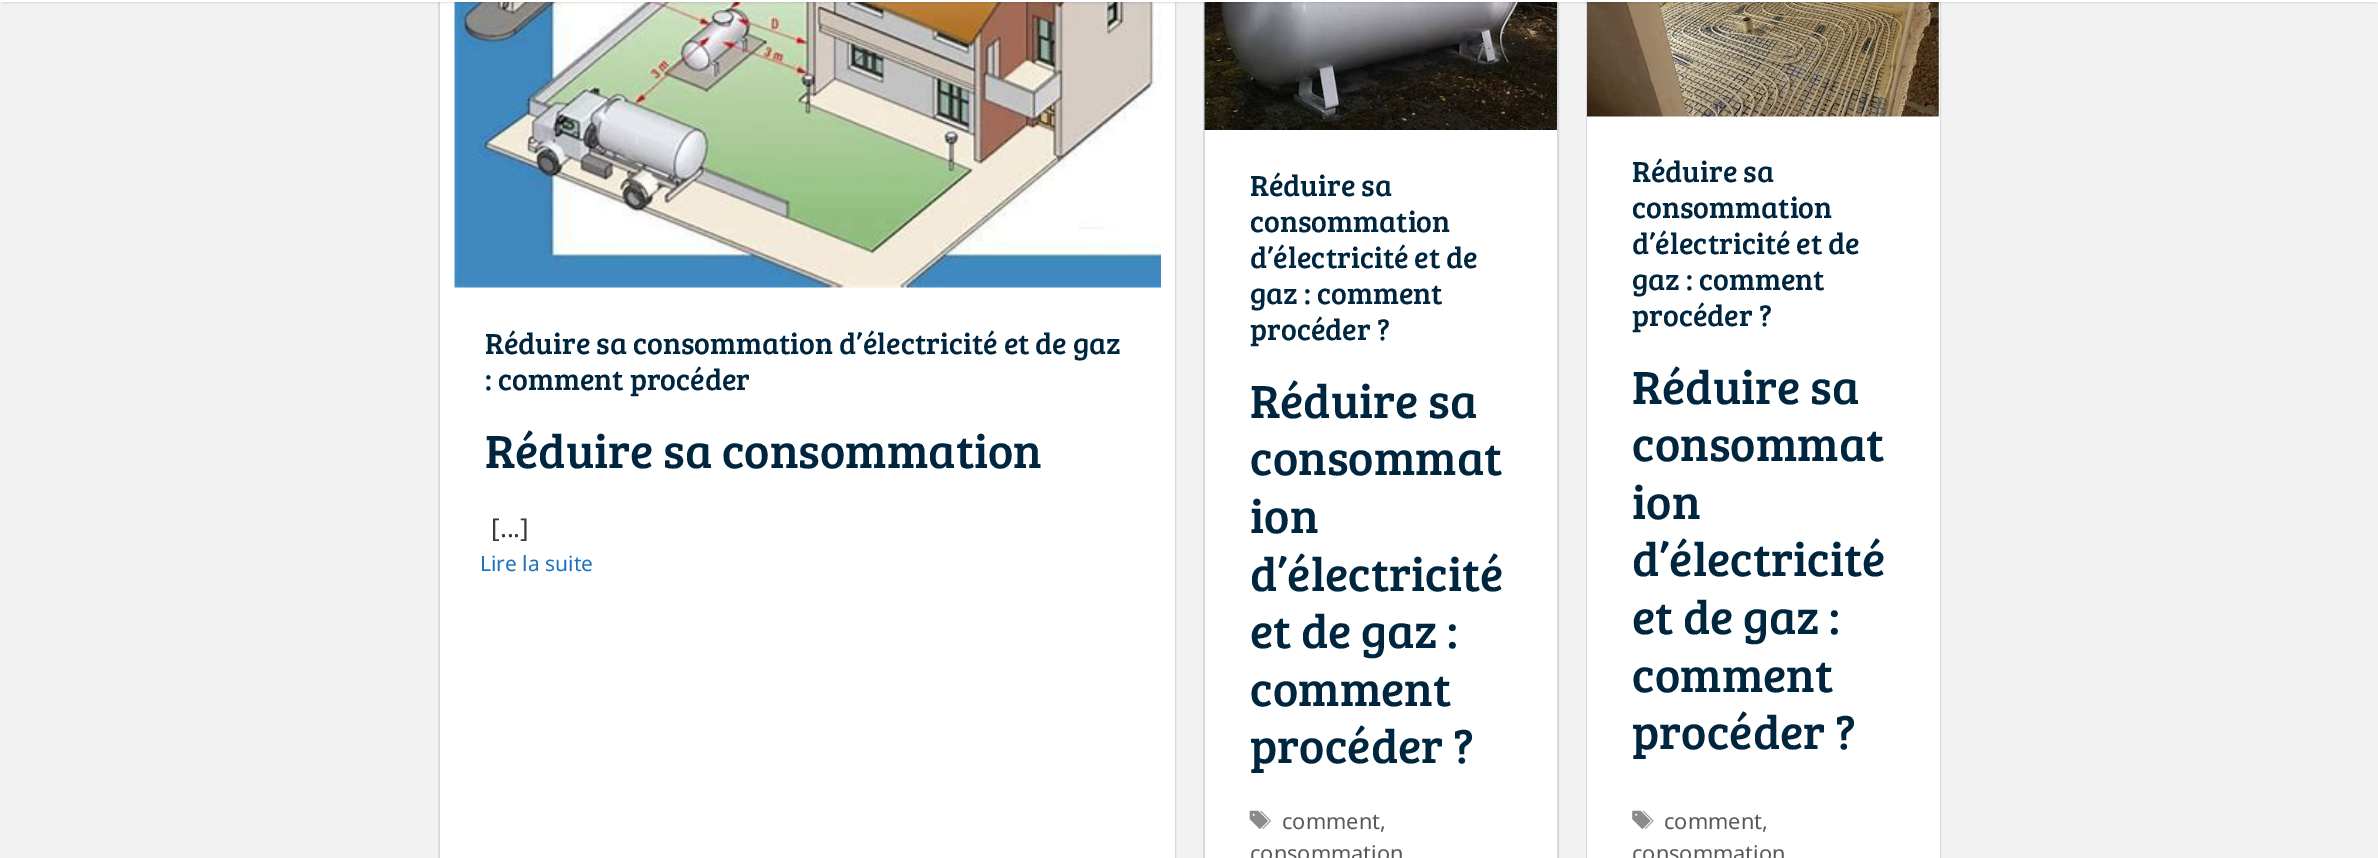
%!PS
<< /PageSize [2378 858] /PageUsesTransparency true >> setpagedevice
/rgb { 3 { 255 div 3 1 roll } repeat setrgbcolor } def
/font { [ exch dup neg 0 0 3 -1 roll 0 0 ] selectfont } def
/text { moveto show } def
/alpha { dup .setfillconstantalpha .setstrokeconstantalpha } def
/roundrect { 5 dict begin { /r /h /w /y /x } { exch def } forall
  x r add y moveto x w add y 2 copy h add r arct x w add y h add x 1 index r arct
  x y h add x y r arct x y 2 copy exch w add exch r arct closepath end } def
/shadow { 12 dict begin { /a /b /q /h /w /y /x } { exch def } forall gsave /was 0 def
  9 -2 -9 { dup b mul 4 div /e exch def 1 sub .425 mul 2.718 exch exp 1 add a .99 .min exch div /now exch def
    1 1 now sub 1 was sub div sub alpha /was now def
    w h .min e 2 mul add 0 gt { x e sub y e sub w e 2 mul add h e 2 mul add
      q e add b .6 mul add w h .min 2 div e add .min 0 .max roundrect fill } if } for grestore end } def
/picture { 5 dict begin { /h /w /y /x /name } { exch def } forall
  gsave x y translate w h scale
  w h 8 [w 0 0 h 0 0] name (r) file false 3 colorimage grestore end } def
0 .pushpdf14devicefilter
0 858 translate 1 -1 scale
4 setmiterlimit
242 242 242 rgb
0 0 2378 858 rectfill
214 218 222 rgb
2 setlinewidth
439 -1 736 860 rectstroke
255 255 255 rgb
440 2 735 856 rectfill
(img_01.rgb) 454 2 707 286 picture
214 218 222 rgb
1204 -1 354 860 rectstroke
(img_02.rgb) 1204 2 353 128 picture
1587 -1 353 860 rectstroke
255 255 255 rgb
1587 2 353 856 rectfill
(img_04.rgb) 1587 2 353 115 picture
0 0 0 rgb
3 -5 2373 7 0 1.5 0.2 shadow
255 255 255 rgb
0 0 2378 2 rectfill
1205 130 352 728 rectfill
(img_03.rgb) 1249 810 22 19 picture
(img_05.rgb) 1632 810 22 19 picture
/BreeSerif-Regular 30 font
0 37 62 rgb
(Réduire sa consommation d’électricité et de gaz) 485 354 text
(: comment procéder) 485 390 text
/BreeSerif-Regular 48 font
(Réduire sa consommation) 485 468 text
/NotoSans-Regular 26 font
58 58 58 rgb
([...]) 491 537 text
/NotoSans-Regular 21 font
30 115 190 rgb
(Lire la suite) 480 571 text
/BreeSerif-Regular 30 font
0 37 62 rgb
(Réduire sa) 1250 196 text
(consommation) 1250 232 text
(d’électricité et de) 1250 268 text
(gaz : comment) 1250 304 text
(procéder ?) 1250 340 text
/BreeSerif-Regular 48 font
(Réduire sa) 1250 418 text
(consommat) 1250 475 text
(ion) 1250 533 text
(d’électricité) 1250 591 text
(et de gaz :) 1250 648 text
(comment) 1250 706 text
(procéder ?) 1250 763 text
/NotoSans-Regular 21.75 font
89 89 89 rgb
(comment,) 1282 829 text
(consommation) 1250 861 text
/BreeSerif-Regular 30 font
0 37 62 rgb
(Réduire sa) 1632 182 text
(consommation) 1632 218 text
(d’électricité et de) 1632 254 text
(gaz : comment) 1632 290 text
(procéder ?) 1632 326 text
/BreeSerif-Regular 48 font
(Réduire sa) 1632 404 text
(consommat) 1632 461 text
(ion) 1632 519 text
(d’électricité) 1632 576 text
(et de gaz :) 1632 634 text
(comment) 1632 692 text
(procéder ?) 1632 749 text
/NotoSans-Regular 21.75 font
89 89 89 rgb
(comment,) 1664 829 text
(consommation) 1632 861 text
.poppdf14devicefilter showpage
